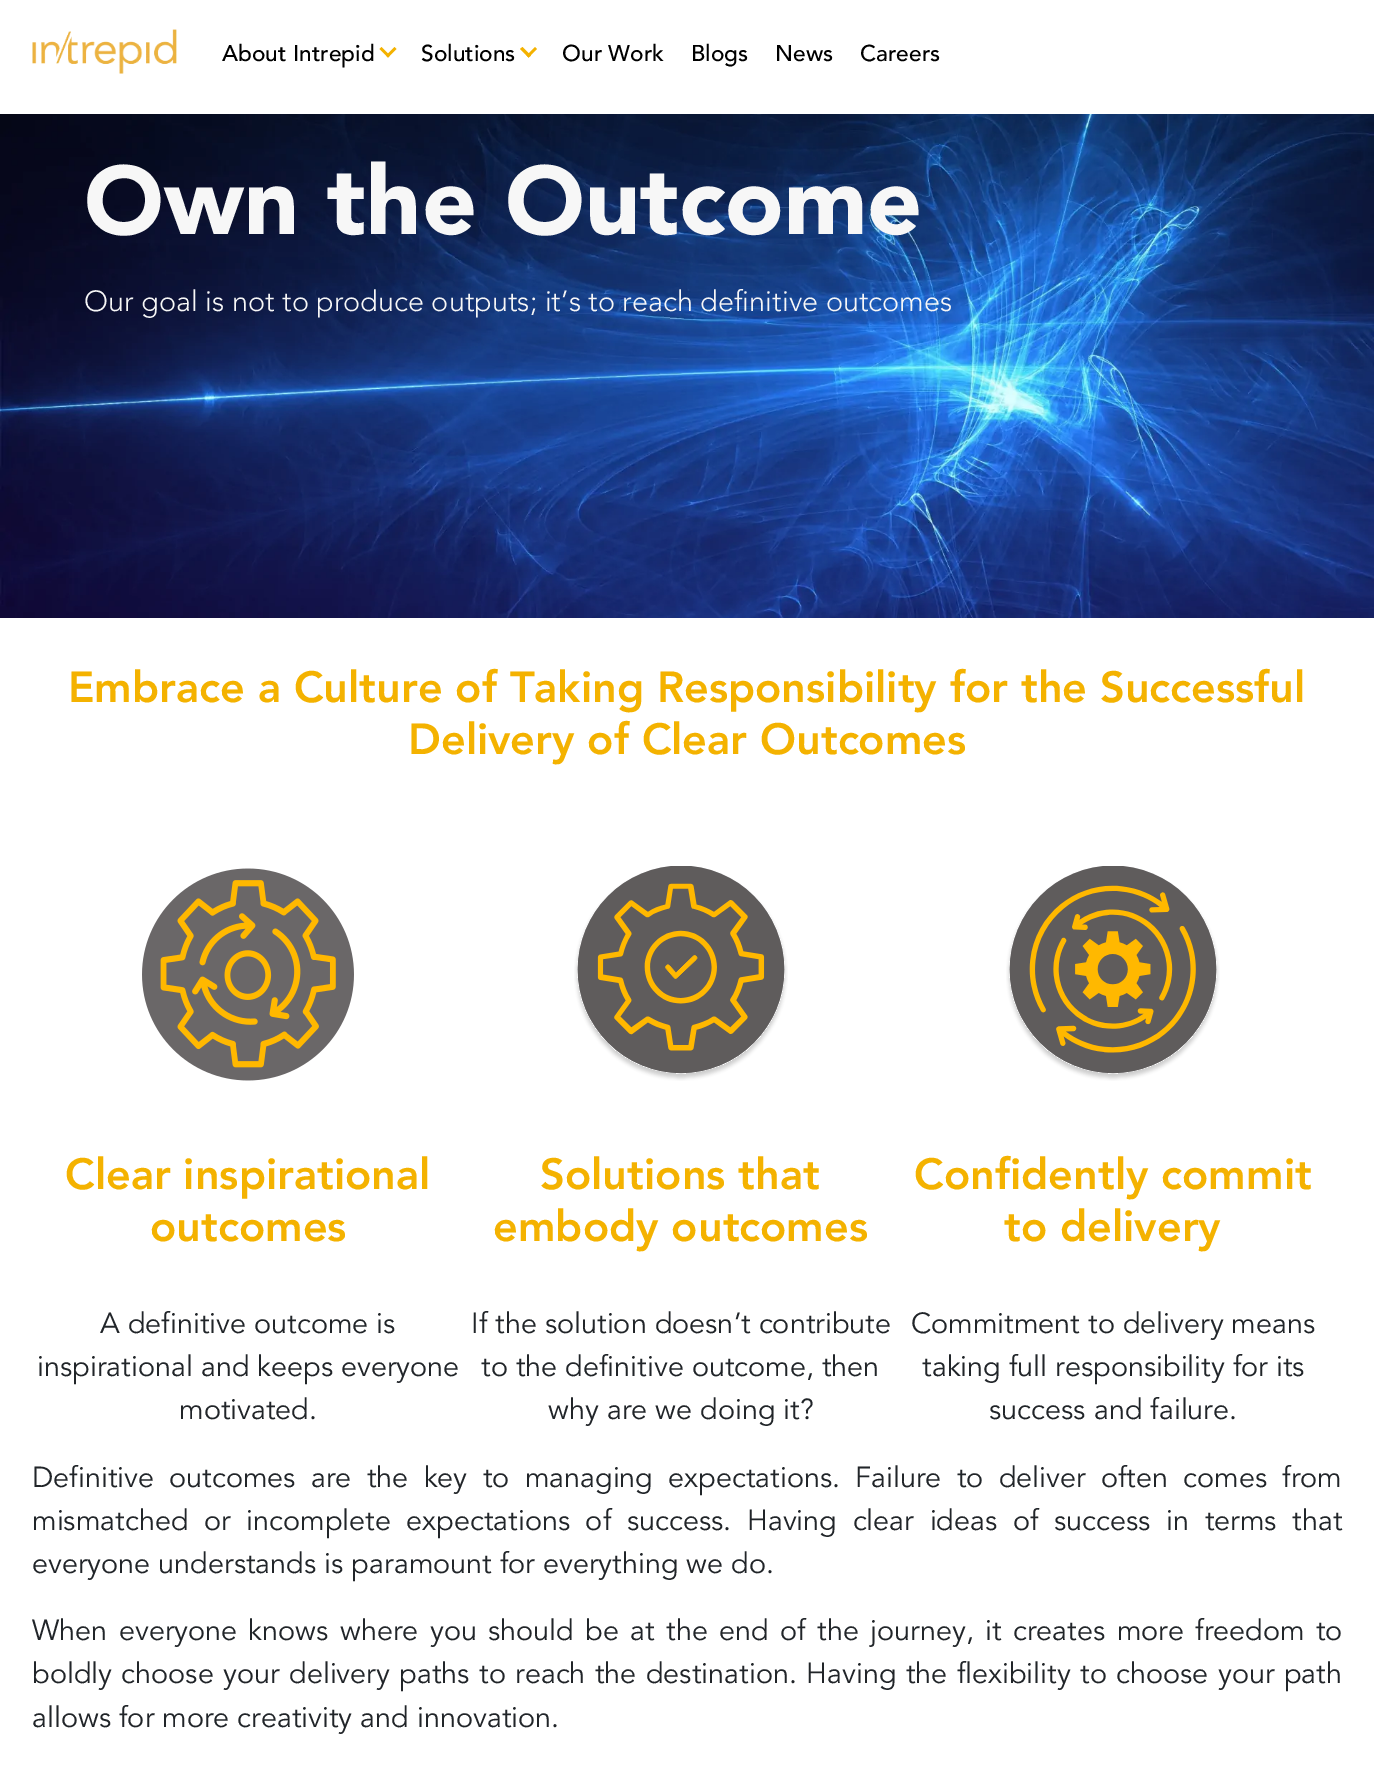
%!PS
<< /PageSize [1374 1769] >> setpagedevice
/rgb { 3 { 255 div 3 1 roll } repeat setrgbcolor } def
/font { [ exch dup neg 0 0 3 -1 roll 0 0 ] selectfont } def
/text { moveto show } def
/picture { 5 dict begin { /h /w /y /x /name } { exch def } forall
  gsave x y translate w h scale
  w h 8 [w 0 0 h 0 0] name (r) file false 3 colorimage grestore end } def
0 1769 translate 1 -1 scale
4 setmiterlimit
255 255 255 rgb
0 0 1374 1769 rectfill
(img_01.rgb) 32 29 145 45 picture
244 178 0 rgb
394.5 47 moveto 2 2 rlineto -8.5 8.5 rlineto -2 -2 rlineto closepath fill
381.5 47 moveto 8.5 8.5 rlineto -2 2 rlineto -8.5 -8.5 rlineto closepath fill
535 47 moveto 2 2 rlineto -8.5 8.5 rlineto -2 -2 rlineto closepath fill
522.5 47 moveto 8.5 8.5 rlineto -2.5 2 rlineto -8.5 -8.5 rlineto closepath fill
(img_02.rgb) 0 114 1374 504 picture
(img_03.rgb) 142 868 212 213 picture
(img_04.rgb) 574 866 214 215 picture
(img_05.rgb) 1006 866 214 215 picture
/Avenir-Medium 22.75 font
0 0 0 rgb
(About Intrepid) 222 61 text
(Solutions) 421 61 text
(Our Work) 562 61 text
(Blogs) 691 61 text
(News) 775 61 text
(Careers) 860 61 text
/Avenir-Black 96 font
247 247 247 rgb
(Own the Outcome) 84 234 text
/Avenir-Light 28.8 font
(Our goal is not to produce outputs; it’s to reach definitive outcomes) 84 311 text
/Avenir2-Black 43.2 font
244 178 0 rgb
(Embrace a Culture of Taking Responsibility for the Successful) 68 702 text
(Delivery of Clear Outcomes) 408 754 text
(Clear inspirational) 65 1189 text
(outcomes) 150 1241 text
/Avenir-Regular 28.8 font
33 37 41 rgb
(A definitive outcome is) 100 1333 text
(inspirational and keeps everyone) 37 1376 text
(motivated.) 179 1419 text
/Avenir2-Black 43.2 font
244 178 0 rgb
(Solutions that) 540 1189 text
(embody outcomes) 493 1241 text
/Avenir-Regular 28.8 font
33 37 41 rgb
(If the solution doesn’t contribute) 471 1333 text
(to the definitive outcome, then) 481 1376 text
(why are we doing it?) 548 1419 text
/Avenir2-Black 43.2 font
244 178 0 rgb
(Confidently commit) 914 1189 text
(to delivery) 1004 1241 text
/Avenir-Regular 28.8 font
33 37 41 rgb
(Commitment to delivery means) 911 1333 text
(taking full responsibility for its) 922 1376 text
(success and failure.) 989 1419 text
32 1487 moveto 7.25 0 32 (Definitive outcomes are the key to managing expectations.) widthshow
855 1487 moveto 7.25 0 32 (Failure to deliver often comes from) widthshow
32 1530 moveto 7.6 0 32 (mismatched or incomplete expectations of success. Having clear ideas of success in terms that) widthshow
(everyone understands is paramount for everything we do.) 32 1573 text
32 1640 moveto 3.4 0 32 (When everyone knows where you should be at the end of the journey, it creates more freedom to) widthshow
32 1683 moveto 1.4 0 32 (boldly choose your delivery paths to reach the destination. Having the flexibility to choose your path) widthshow
(allows for more creativity and innovation.) 32 1727 text
showpage
